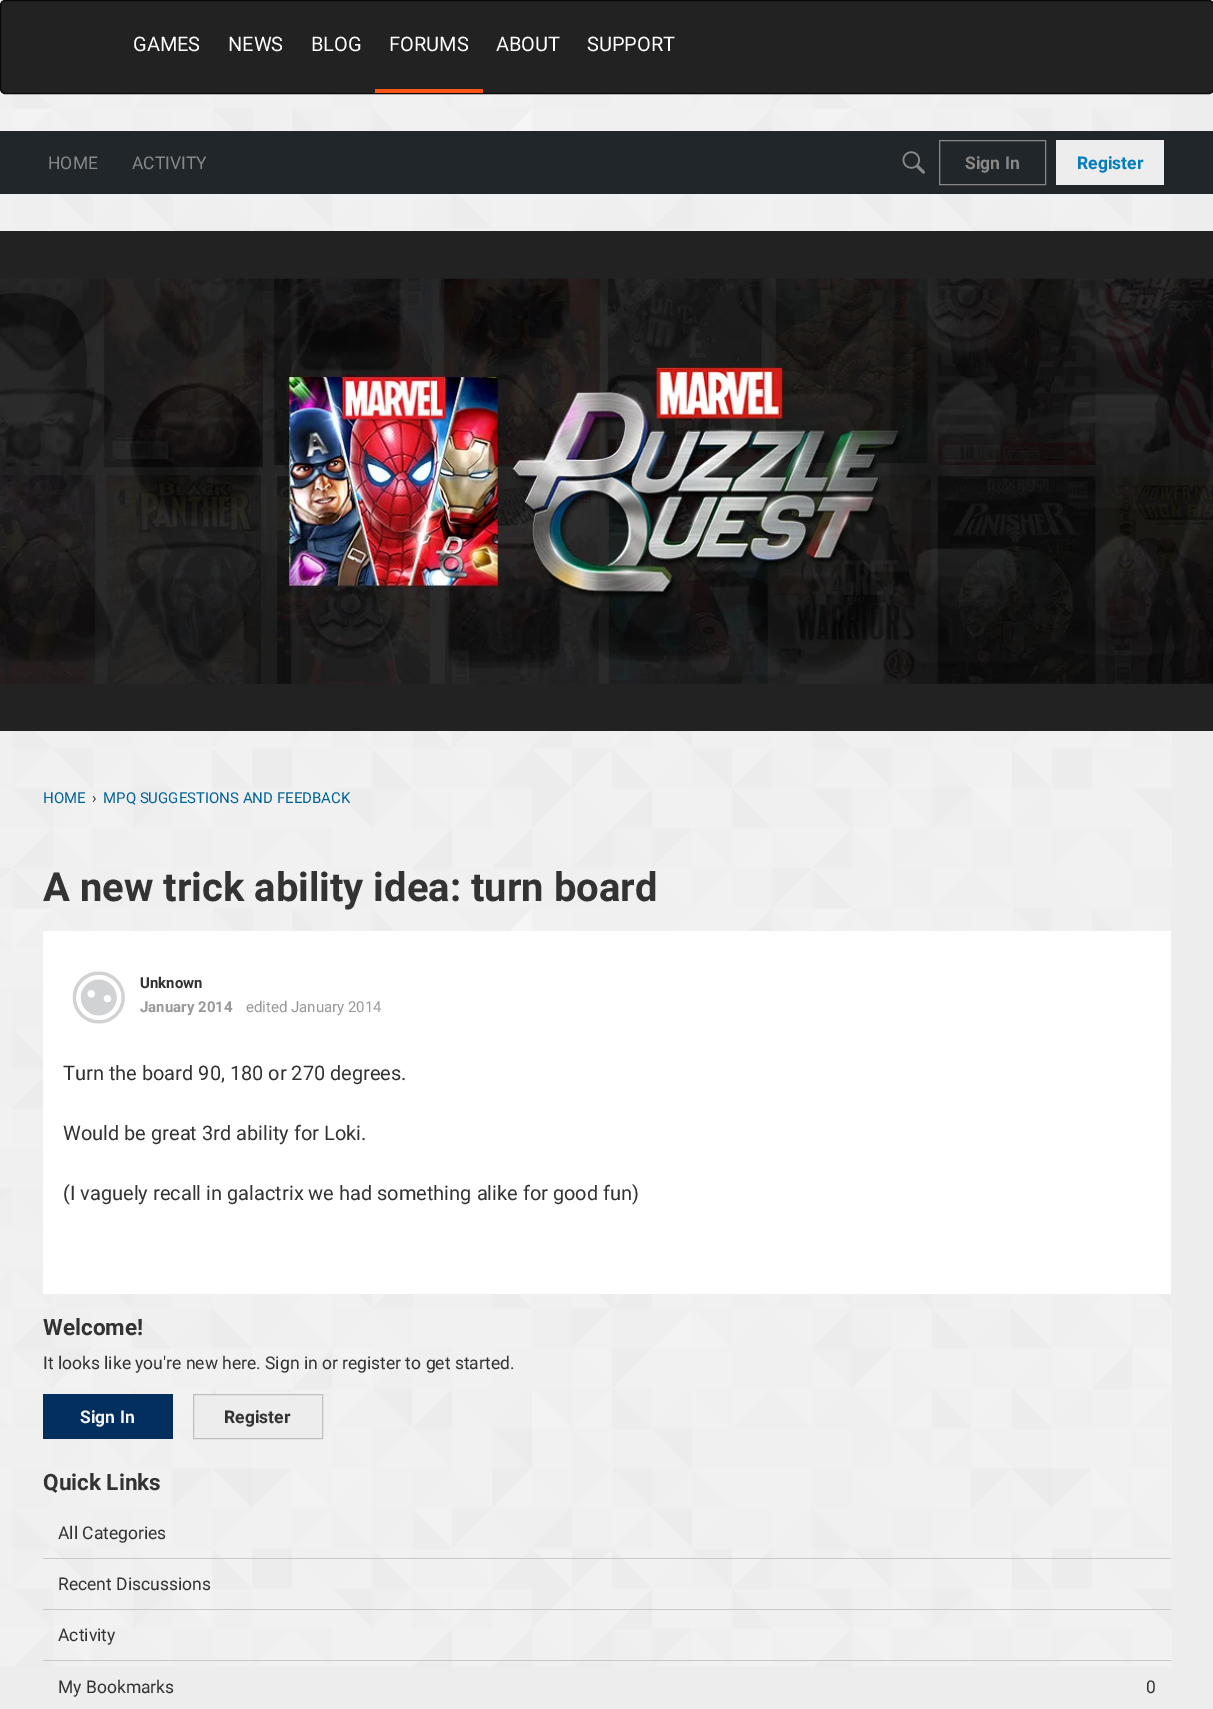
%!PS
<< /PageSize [1213 1709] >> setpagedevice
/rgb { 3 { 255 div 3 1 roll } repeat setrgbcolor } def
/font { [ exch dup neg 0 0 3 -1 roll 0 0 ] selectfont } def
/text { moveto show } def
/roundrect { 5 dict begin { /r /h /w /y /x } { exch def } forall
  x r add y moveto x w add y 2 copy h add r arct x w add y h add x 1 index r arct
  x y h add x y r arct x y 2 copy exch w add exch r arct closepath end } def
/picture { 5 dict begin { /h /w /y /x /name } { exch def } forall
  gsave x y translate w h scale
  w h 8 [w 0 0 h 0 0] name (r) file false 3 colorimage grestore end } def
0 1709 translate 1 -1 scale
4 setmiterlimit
237 237 237 rgb
0 0 1213 1709 rectfill
(img_02.rgb) 0 0 1172 1667 picture
34 34 34 rgb
0.5 0.5 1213 93 4.5 roundrect gsave fill grestore
8 8 8 rgb
stroke
251 84 21 rgb
375 89 108 4 rectfill
33 38 42 rgb
0 131 1213 63 rectfill
(img_01.rgb) 902 151 23 23 picture
136 136 136 rgb
939.5 140.5 106 44 rectstroke
237 237 237 rgb
1056 140 108 45 rectfill
34 34 34 rgb
0 231 1213 500 rectfill
(img_03.rgb) 0 278 1213 406 picture
255 255 255 rgb
43 931 1128 363 rectfill
(img_04.rgb) 72 971 53 53 picture
3 47 95 rgb
43 1394 130 45 rectfill
237 237 237 rgb
193.5 1394.5 moveto 129 0 rlineto 0 44 rlineto -129 0 rlineto closepath gsave fill grestore
192 192 192 rgb
stroke
200 200 200 rgb
43 1558 1128 1 rectfill
43 1609 1128 1 rectfill
43 1660 1128 1 rectfill
/Roboto-Regular 20 font
255 255 255 rgb
(GAMES) 133 51 text
(NEWS) 228 51 text
(BLOG) 311 51 text
(FORUMS) 389 51 text
(ABOUT) 496 51 text
(SUPPORT) 587 51 text
/Roboto-Regular 17.5 font
136 136 136 rgb
(HOME) 48 169 text
(ACTIVITY) 132 169 text
/Roboto-Bold 17.5 font
(Sign In) 965 169 text
3 125 188 rgb
(Register) 1077 169 text
/Roboto-Regular 15 font
2 100 150 rgb
(HOME) 43 803 text
51 51 51 rgb
(›) 92 803 text
2 100 150 rgb
(MPQ SUGGESTIONS AND FEEDBACK) 103 803 text
/Roboto-Bold 40 font
51 51 51 rgb
(A new trick ability idea: turn board) 43 901 text
/Roboto-Bold 15 font
(Unknown) 140 988 text
153 153 153 rgb
(January 2014) 140 1012 text
/Roboto-Regular 15 font
(edited January 2014) 246 1012 text
/Roboto-Regular 20 font
51 51 51 rgb
(Turn the board 90, 180 or 270 degrees.) 63 1080 text
(Would be great 3rd ability for Loki.) 63 1140 text
(\(I vaguely recall in galactrix we had something alike for good fun\)) 63 1200 text
/Roboto-Bold 22.5 font
(Welcome!) 43 1335 text
/Roboto-Regular 17.5 font
(It looks like you're new here. Sign in or register to get started.) 43 1369 text
/Roboto-Bold 17.5 font
243 243 243 rgb
(Sign In) 80 1423 text
51 51 51 rgb
(Register) 224 1423 text
/Roboto-Bold 22.5 font
(Quick Links) 43 1490 text
/Roboto-Regular 17.5 font
(All Categories) 58 1539 text
(Recent Discussions) 58 1590 text
(Activity) 58 1641 text
(My Bookmarks) 58 1693 text
(0) 1146 1693 text
showpage
